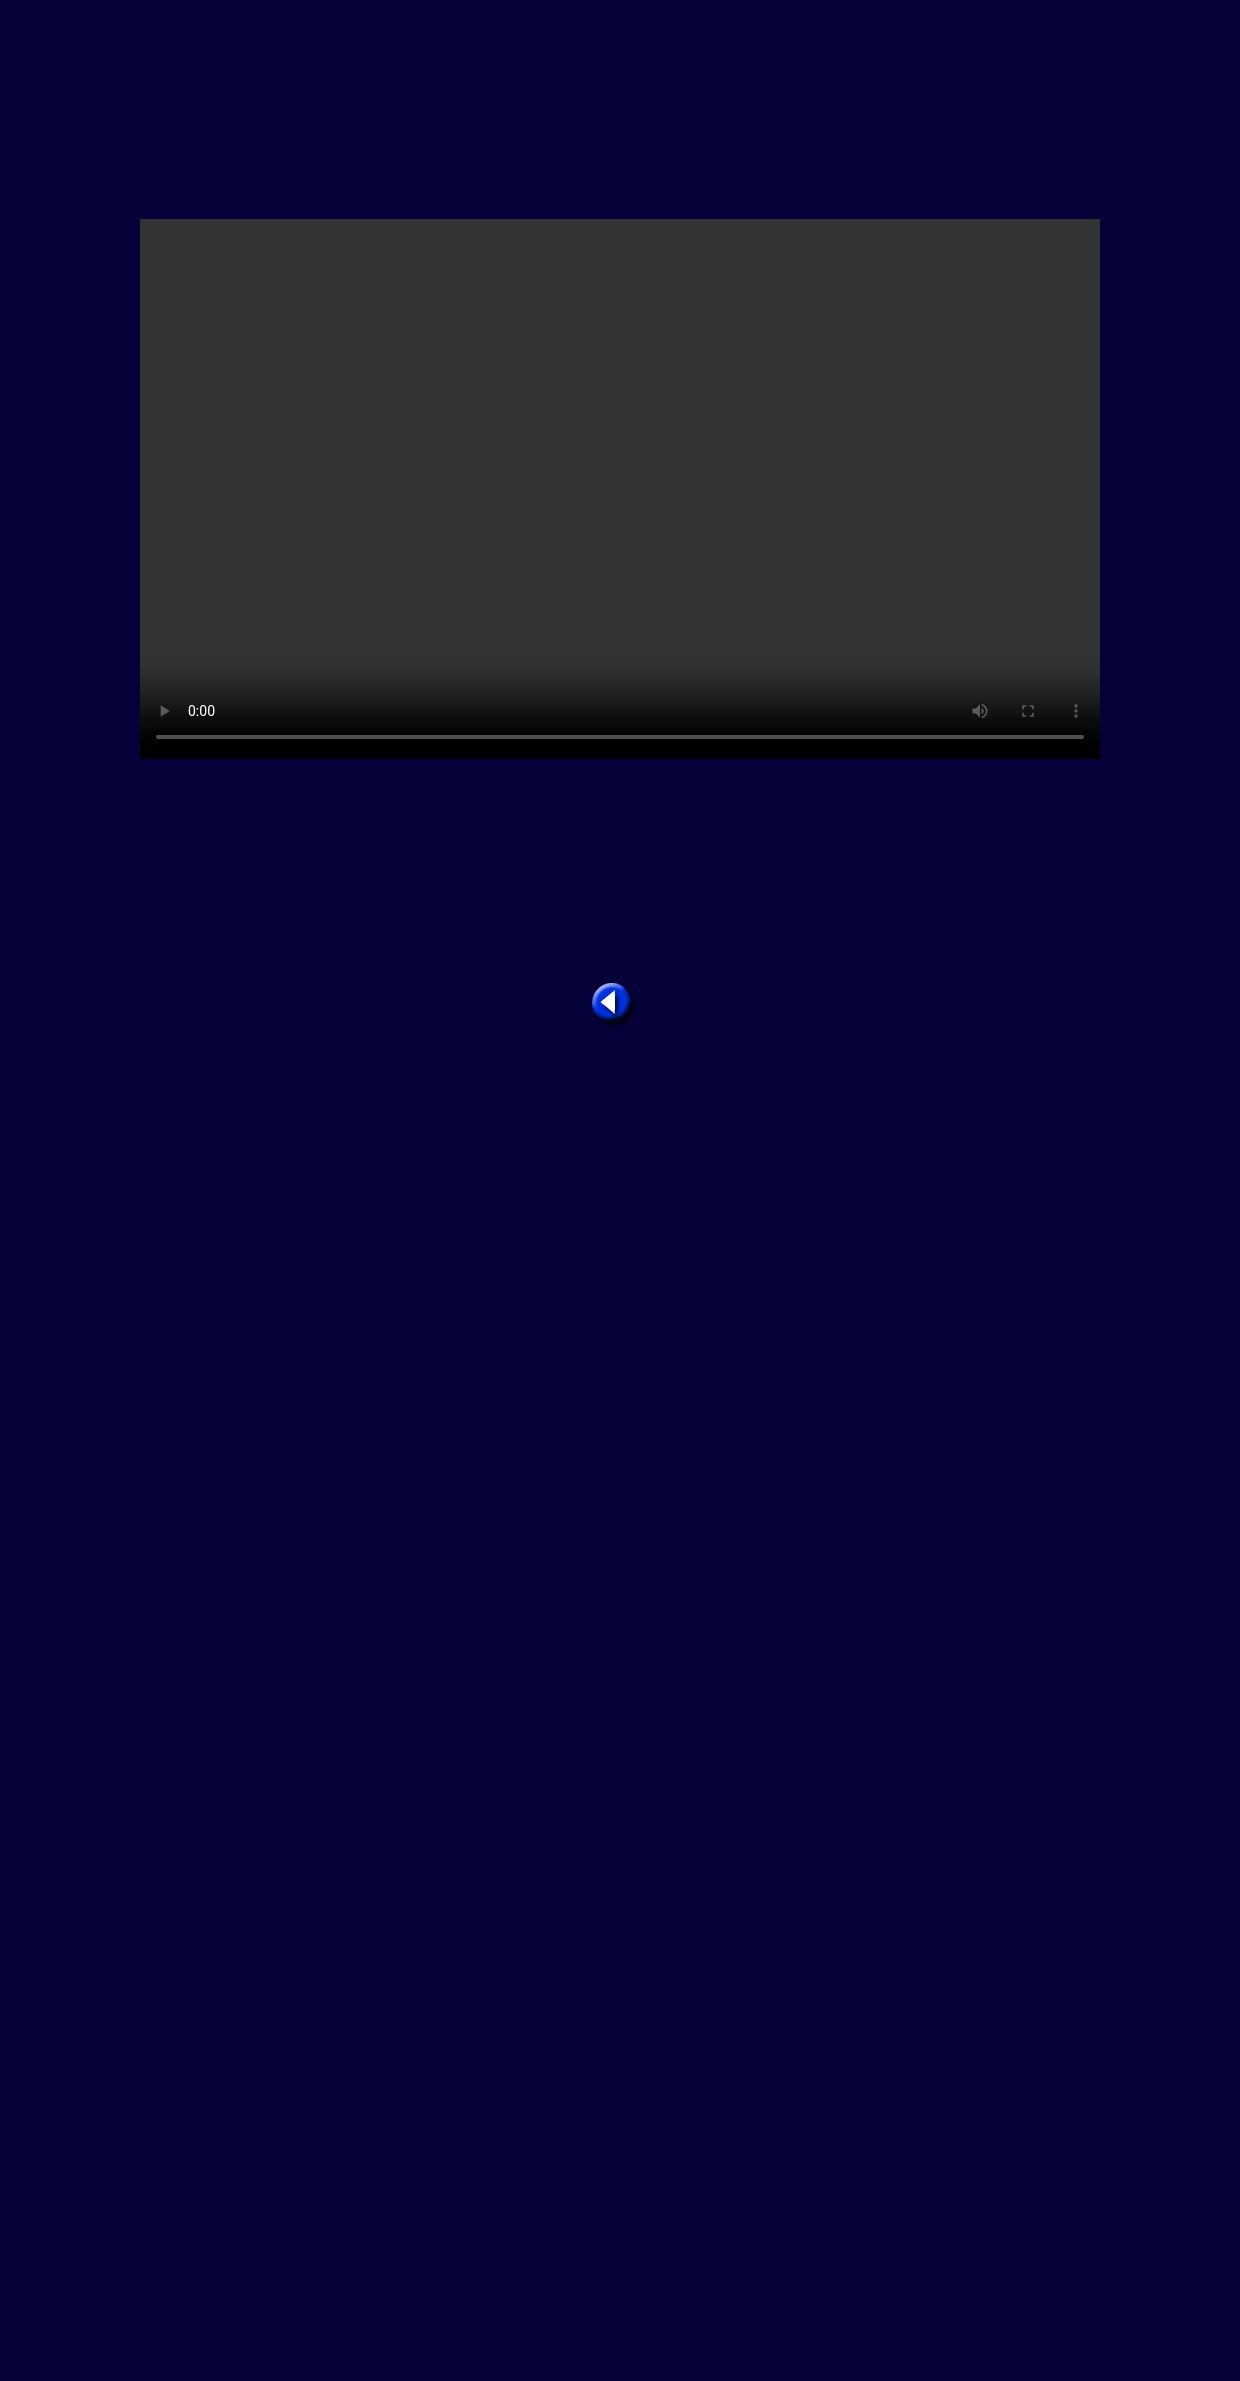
%!PS
<< /PageSize [1240 2381] >> setpagedevice
/rgb { 3 { 255 div 3 1 roll } repeat setrgbcolor } def
/picture { 5 dict begin { /h /w /y /x /name } { exch def } forall
  gsave x y translate w h scale
  w h 8 [w 0 0 h 0 0] name (r) file false 3 colorimage grestore end } def
0 2381 translate 1 -1 scale
4 setmiterlimit
6 2 57 rgb
0 0 1240 2381 rectfill
(img_01.rgb) 140 219 960 540 picture
(img_02.rgb) 592 983 45 45 picture
showpage
